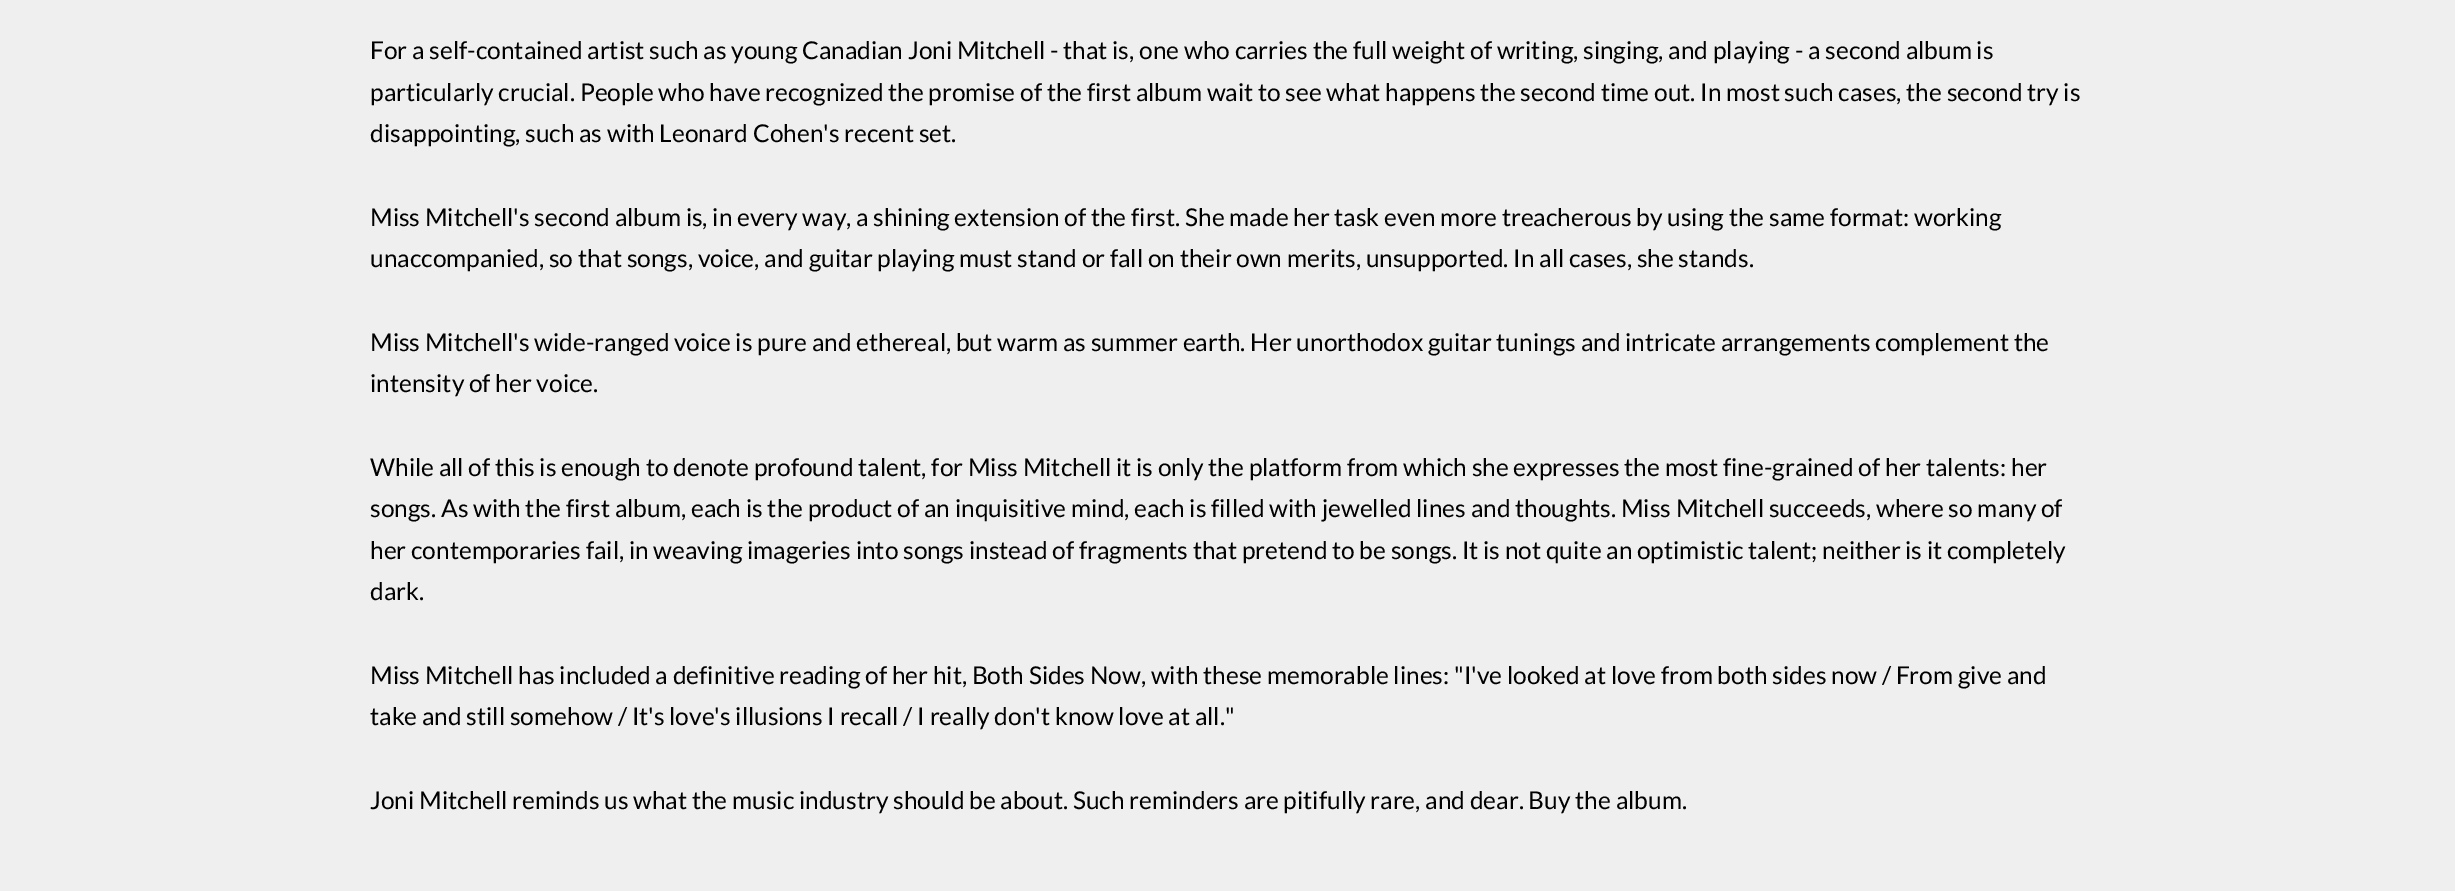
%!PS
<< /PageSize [2455 891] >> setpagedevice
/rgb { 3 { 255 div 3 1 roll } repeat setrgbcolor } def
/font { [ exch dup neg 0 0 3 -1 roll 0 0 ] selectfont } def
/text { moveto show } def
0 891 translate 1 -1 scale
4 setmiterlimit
239 239 239 rgb
0 0 2455 891 rectfill
/Lato-Regular 24.5 font
0 0 0 rgb
(For a self-contained artist such as young Canadian Joni Mitchell - that is, one who carries the full weight of writing, singing, and playing - a second album is) 370 59 text
(particularly crucial. People who have recognized the promise of the first album wait to see what happens the second time out. In most such cases, the second try is) 370 101 text
(disappointing, such as with Leonard Cohen's recent set.) 370 142 text
(Miss Mitchell's second album is, in every way, a shining extension of the first. She made her task even more treacherous by using the same format: working) 370 226 text
(unaccompanied, so that songs, voice, and guitar playing must stand or fall on their own merits, unsupported. In all cases, she stands.) 370 267 text
(Miss Mitchell's wide-ranged voice is pure and ethereal, but warm as summer earth. Her unorthodox guitar tunings and intricate arrangements complement the) 370 351 text
(intensity of her voice.) 370 392 text
(While all of this is enough to denote profound talent, for Miss Mitchell it is only the platform from which she expresses the most fine-grained of her talents: her) 370 476 text
(songs. As with the first album, each is the product of an inquisitive mind, each is filled with jewelled lines and thoughts. Miss Mitchell succeeds, where so many of) 370 517 text
(her contemporaries fail, in weaving imageries into songs instead of fragments that pretend to be songs. It is not quite an optimistic talent; neither is it completely) 370 559 text
(dark.) 370 600 text
(Miss Mitchell has included a definitive reading of her hit, Both Sides Now, with these memorable lines: "I've looked at love from both sides now / From give and) 370 684 text
(take and still somehow / It's love's illusions I recall / I really don't know love at all.") 370 725 text
(Joni Mitchell reminds us what the music industry should be about. Such reminders are pitifully rare, and dear. Buy the album.) 370 809 text
showpage
